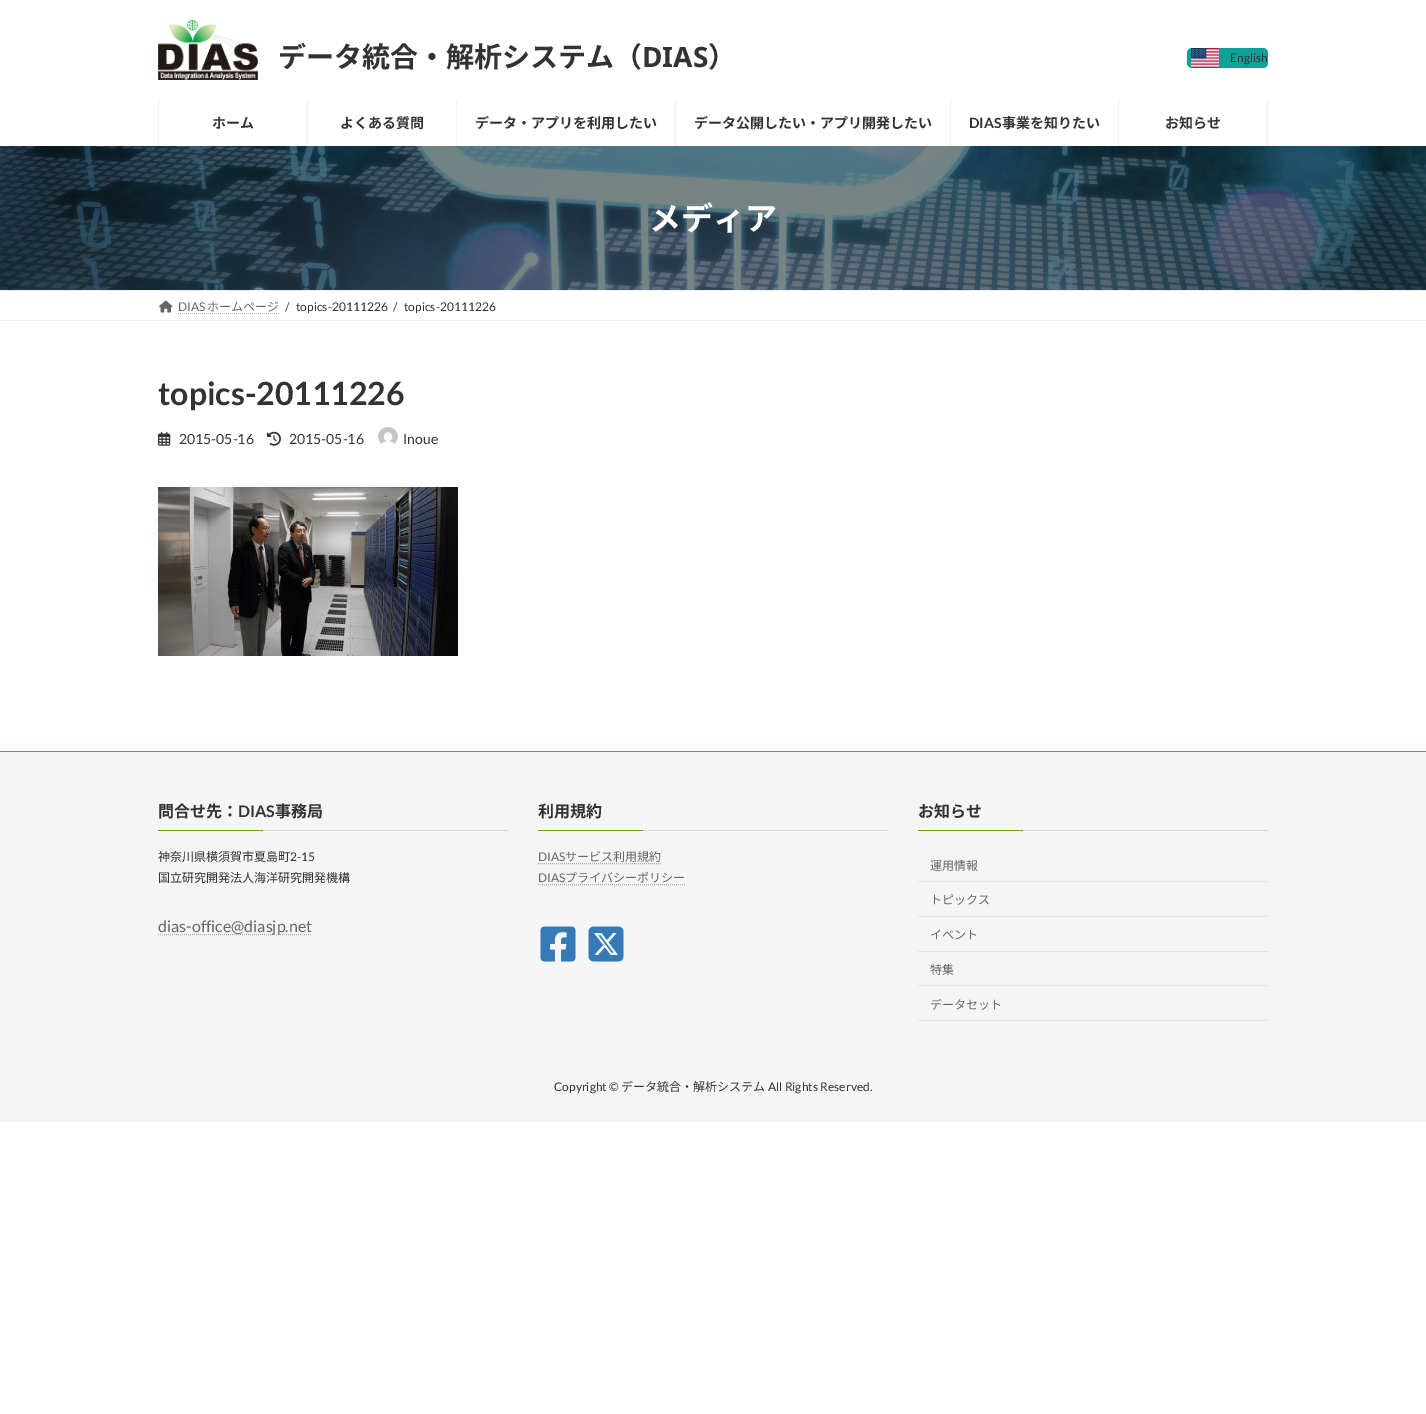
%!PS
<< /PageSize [1426 1414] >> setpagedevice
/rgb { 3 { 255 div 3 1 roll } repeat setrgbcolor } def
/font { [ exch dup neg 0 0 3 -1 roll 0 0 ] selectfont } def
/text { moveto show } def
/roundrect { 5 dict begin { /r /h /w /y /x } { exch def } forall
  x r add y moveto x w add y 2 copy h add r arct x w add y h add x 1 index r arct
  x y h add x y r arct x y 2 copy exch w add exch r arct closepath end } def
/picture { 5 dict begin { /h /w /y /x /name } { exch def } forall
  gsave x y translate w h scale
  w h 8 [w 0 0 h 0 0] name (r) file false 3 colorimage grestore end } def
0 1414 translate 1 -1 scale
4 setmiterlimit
255 255 255 rgb
0 0 1426 1414 rectfill
(img_01.rgb) 158 20 100 60 picture
11 162 154 rgb
1187 48 81 20 5 roundrect fill
(img_02.rgb) 1191 48 28 20 picture
240 240 240 rgb
307 99 1 47 rectfill
158 99 1 47 rectfill
456 99 1 47 rectfill
675 99 1 47 rectfill
950 99 1 47 rectfill
1118 99 1 47 rectfill
1267 99 1 47 rectfill
(img_03.rgb) 0 146 1426 144 picture
0 290 1426 1 rectfill
0 320 1426 1 rectfill
(img_04.rgb) 159 300 14 13 picture
179 179 179 rgb
[1 1] 0 setdash
178 313.5 moveto 101.5 0 rlineto stroke
(img_05.rgb) 158 431 13 15 picture
(img_06.rgb) 267 431 14 15 picture
(img_07.rgb) 378 427 20 17 picture
(img_08.rgb) 158 487 300 169 picture
245 245 245 rgb
0 752 1426 370 rectfill
98 168 23 rgb
0 751 1426 1 rectfill
216 216 216 rgb
263 830 245 1 rectfill
98 168 23 rgb
158 830 105 1 rectfill
172 172 172 rgb
158 934.5 moveto 154 0 rlineto stroke
216 216 216 rgb
643 830 245 1 rectfill
98 168 23 rgb
538 830 105 1 rectfill
172 172 172 rgb
538 863.5 moveto 123 0 rlineto stroke
538 884.5 moveto 147 0 rlineto stroke
(img_09.rgb) 540 926 36 36 picture
(img_10.rgb) 588 926 36 36 picture
216 216 216 rgb
1023 830 245 1 rectfill
98 168 23 rgb
918 830 105 1 rectfill
230 230 230 rgb
918 881 350 1 rectfill
918 916 350 1 rectfill
918 951 350 1 rectfill
918 985 350 1 rectfill
918 1020 350 1 rectfill
/NotoSansJP-Bold 28 font
51 51 51 rgb
(データ統合・解析システム（) 278 67 text
/NotoSans-Bold 28 font
(DIAS) 642 67 text
/NotoSansJP-Bold 28 font
(）) 708 67 text
/Lato-Regular 12 font
(English) 1230 62 text
/NotoSansJP-Bold 14 font
(ホーム) 212 128 text
(よくある質問) 340 128 text
(データ・アプリを利用したい) 475 128 text
(データ公開したい・アプリ開発したい) 694 128 text
/Lato-Bold 14 font
(DIAS) 969 128 text
/NotoSansJP-Bold 14 font
(事業を知りたい) 1002 128 text
(お知らせ) 1165 128 text
/NotoSansJP-Bold 32 font
255 255 255 rgb
(メディア) 649 230 text
/Lato-Regular 12 font
102 102 102 rgb
(DIAS) 178 311 text
/NotoSansJP-Regular 12 font
(ホームページ) 207 311 text
/Lato-Regular 12 font
51 51 51 rgb
(/) 285 311 text
(topics-20111226) 296 311 text
(/) 393 311 text
(topics-20111226) 404 311 text
/Lato-Bold 32 font
(topics-20111226) 158 405 text
/Lato-Regular 14 font
(2015-05-16) 179 444 text
(2015-05-16) 289 444 text
(Inoue) 403 444 text
/NotoSansJP-Bold 16 font
(問合せ先：) 158 817 text
/Lato-Bold 16 font
(DIAS) 238 817 text
/NotoSansJP-Bold 16 font
(事務局) 275 817 text
/NotoSansJP-Regular 12 font
(神奈川県横須賀市夏島町) 158 861 text
/Lato-Regular 12 font
(2-15) 290 861 text
/NotoSansJP-Regular 12 font
(国立研究開発法人海洋研究開発機構) 158 882 text
/Lato-Regular 16 font
102 102 102 rgb
(dias-office@diasjp.net) 158 932 text
/NotoSansJP-Bold 16 font
51 51 51 rgb
(利用規約) 538 817 text
/Lato-Regular 12 font
102 102 102 rgb
(DIAS) 538 861 text
/NotoSansJP-Regular 12 font
(サービス利用規約) 565 861 text
/Lato-Regular 12 font
(DIAS) 538 882 text
/NotoSansJP-Regular 12 font
(プライバシーポリシー) 565 882 text
/NotoSansJP-Bold 16 font
51 51 51 rgb
(お知らせ) 918 817 text
/NotoSansJP-Regular 12 font
102 102 102 rgb
(運用情報) 930 870 text
(トピックス) 930 904 text
(イベント) 930 939 text
(特集) 930 974 text
(データセット) 930 1009 text
/Lato-Regular 12 font
51 51 51 rgb
(Copyright ©) 554 1091 text
/NotoSansJP-Regular 12 font
(データ統合・解析システム) 621 1091 text
/Lato-Regular 12 font
(All Rights Reserved.) 768 1091 text
showpage
